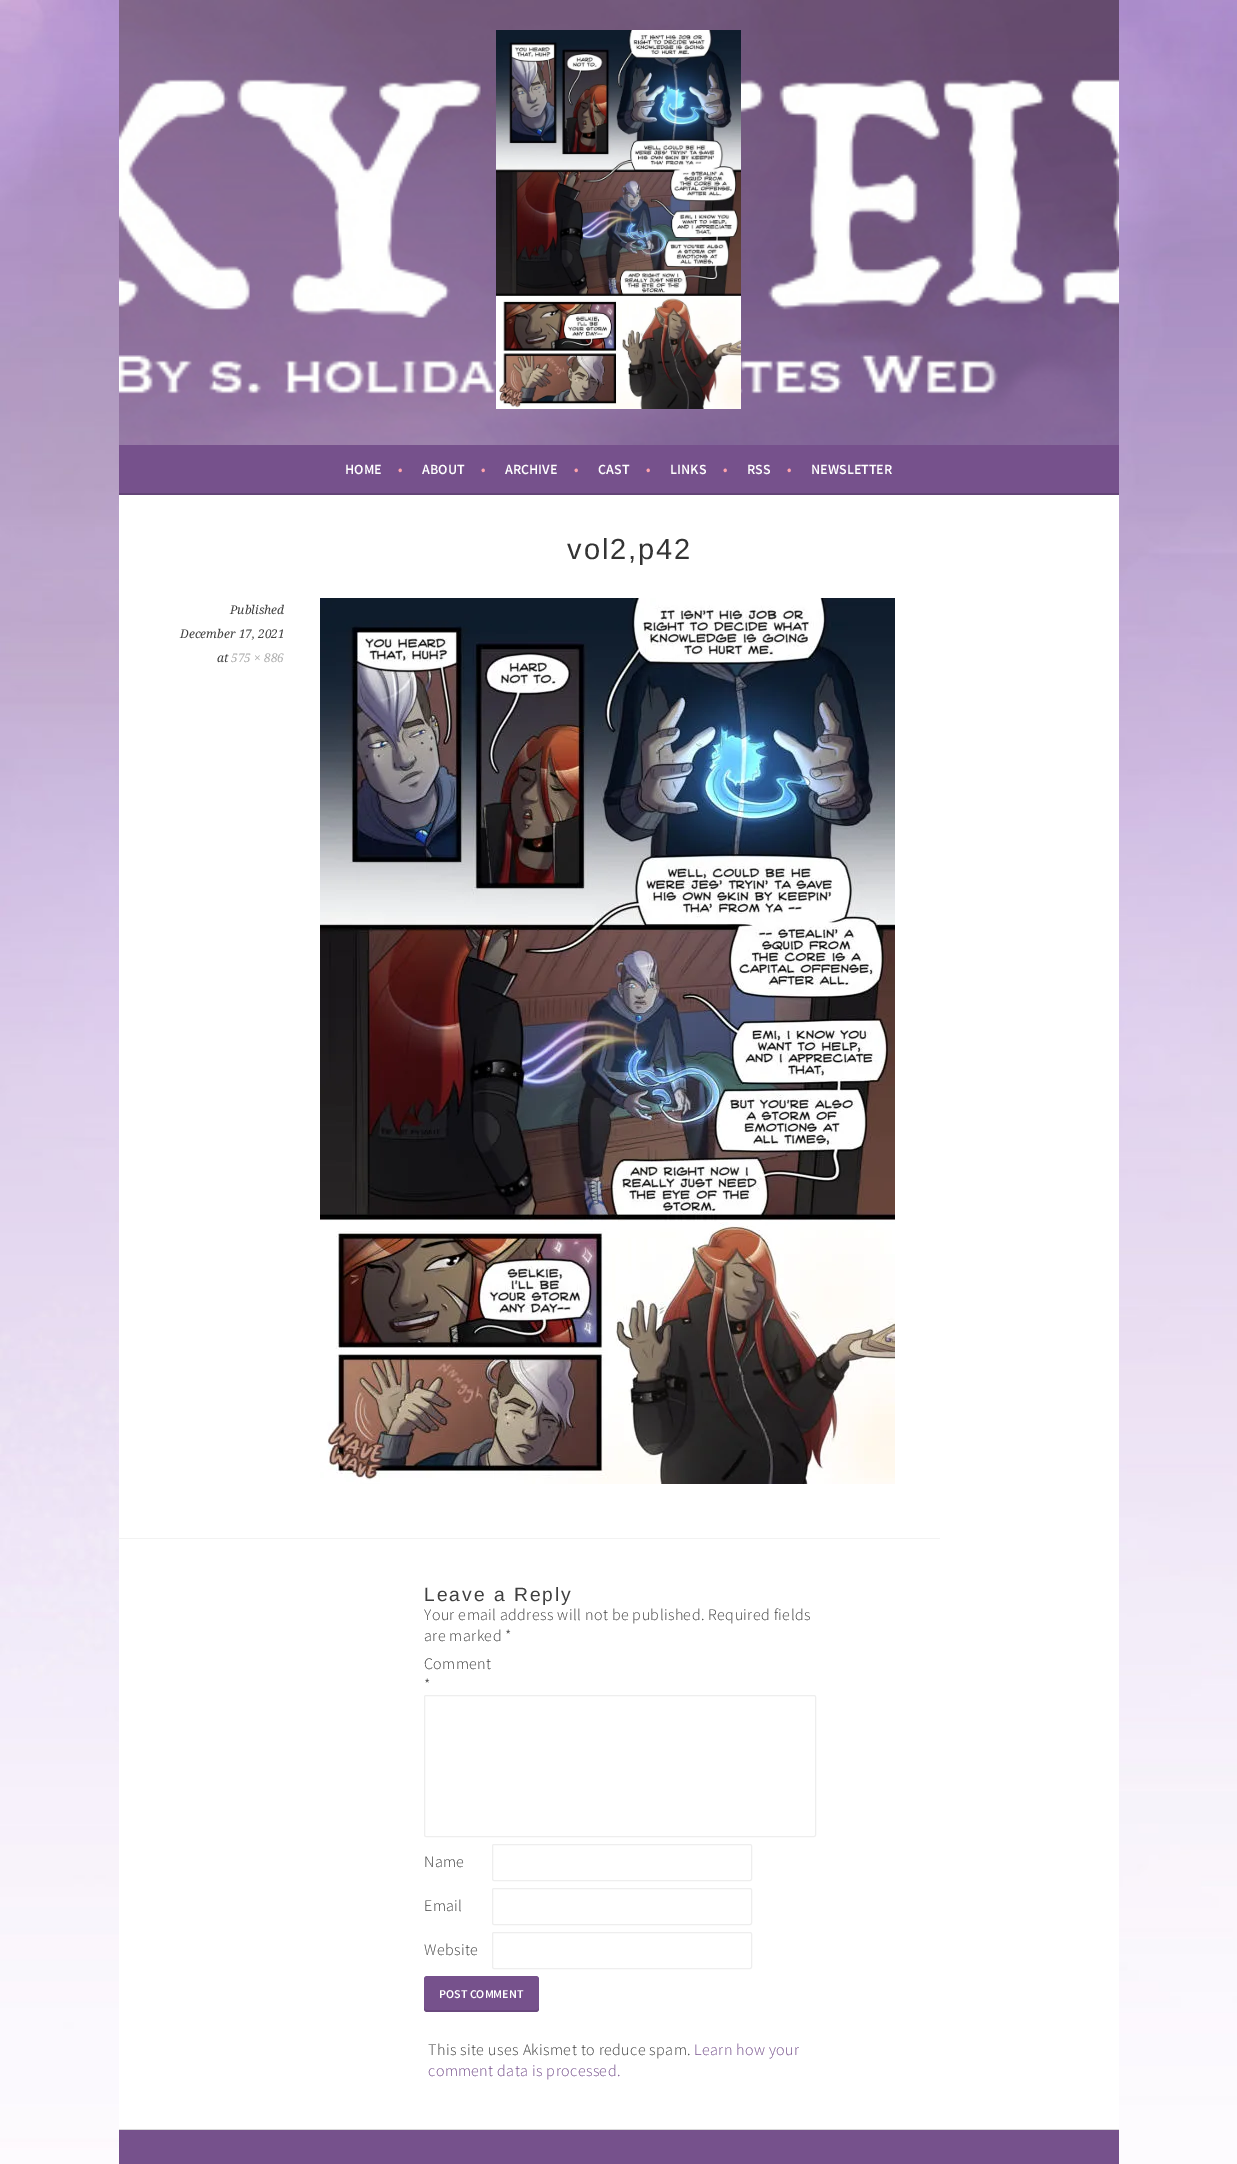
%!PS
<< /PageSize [1237 2164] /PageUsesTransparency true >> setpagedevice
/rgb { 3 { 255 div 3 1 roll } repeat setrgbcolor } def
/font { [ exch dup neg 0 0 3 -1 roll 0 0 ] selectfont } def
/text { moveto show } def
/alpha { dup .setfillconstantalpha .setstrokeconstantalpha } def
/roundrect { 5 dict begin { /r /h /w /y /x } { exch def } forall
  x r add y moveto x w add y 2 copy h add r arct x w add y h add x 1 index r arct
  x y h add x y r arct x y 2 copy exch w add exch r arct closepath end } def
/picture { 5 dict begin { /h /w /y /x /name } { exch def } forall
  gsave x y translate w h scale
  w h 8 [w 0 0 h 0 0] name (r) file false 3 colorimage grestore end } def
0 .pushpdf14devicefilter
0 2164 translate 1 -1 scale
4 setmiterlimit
255 255 255 rgb
0 0 1237 2164 rectfill
(img_01.rgb) 0 0 1237 2164 picture
(img_02.rgb) 119 0 1000 445 picture
(img_03.rgb) 496 30 245 379 picture
118 81 140 rgb
119 445 1000 48 rectfill
100 69 119 rgb
119 493 1000 2 rectfill
255 255 255 rgb
119 495 1000 1634 rectfill
(img_04.rgb) 320 598 575 886 picture
242 242 242 rgb
118 1538 822 1 rectfill
238 238 238 rgb
424.5 1695.5 391 141 1.5 roundrect stroke
492.5 1844.5 259 36 1.5 roundrect stroke
492.5 1888.5 259 36 1.5 roundrect stroke
492.5 1932.5 259 36 1.5 roundrect stroke
118 81 140 rgb
424 1976 115 36 3 roundrect fill
0.1 alpha
0 0 0 rgb
424 2007 moveto 0 2 rlineto 0 2 1 3 3 3 rcurveto 109 0 rlineto 2 0 3 -1 3 -3 rcurveto 0 -2 rlineto 0 2 -1 3 -3 3 rcurveto -109 0 rlineto -2 0 -3 -1 -3 -3 rcurveto closepath fill
1 alpha
118 81 140 rgb
119 2130 1000 34 rectfill
217 217 217 rgb
119 2129 1000 1 rectfill
/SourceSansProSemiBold-SemiBold 14 font
255 255 255 rgb
(HOME) 345 474 text
255 164 173 rgb
(•) 398 474 text
255 255 255 rgb
(ABOUT) 422 474 text
255 164 173 rgb
(•) 481 474 text
255 255 255 rgb
(ARCHIVE) 505 474 text
255 164 173 rgb
(•) 574 474 text
255 255 255 rgb
(CAST) 598 474 text
255 164 173 rgb
(•) 646 474 text
255 255 255 rgb
(LINKS) 670 474 text
255 164 173 rgb
(•) 723 474 text
255 255 255 rgb
(RSS) 747 474 text
255 164 173 rgb
(•) 787 474 text
255 255 255 rgb
(NEWSLETTER) 811 474 text
/LiberationSans-Regular 29 font
51 51 51 rgb
567 559 moveto 2 0 (vol2,p42) ashow
/DroidSerif-Italic 12 font
64 64 64 rgb
(Published) 230 614 text
(December 17, 2021) 180 638 text
(at) 217 662 text
170 170 170 rgb
(575 × 886) 231 662 text
/LiberationSans-Regular 19.25 font
64 64 64 rgb
424 1601 moveto 2 0 (Leave a Reply) ashow
/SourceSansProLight-Light 16 font
424 1620 moveto 0.4 0 (Your email address will not be published. Required fields) ashow
424 1641 moveto 0.4 0 (are marked *) ashow
424 1669 moveto 0.4 0 (Comment) ashow
424 1690 moveto 0.4 0 (*) ashow
424 1867 moveto 0.4 0 (Name) ashow
424 1911 moveto 0.4 0 (Email) ashow
424 1955 moveto 0.4 0 (Website) ashow
/SourceSansProSemiBold-SemiBold 12 font
255 255 255 rgb
(POST COMMENT) 439 1998 text
/SourceSansProLight-Light 16 font
64 64 64 rgb
428 2055 moveto 0.4 0 (This site uses Akismet to reduce spam.) ashow
118 81 140 rgb
694 2055 moveto 0.4 0 (Learn how your) ashow
428 2076 moveto 0.4 0 (comment data is processed.) ashow
.poppdf14devicefilter showpage
